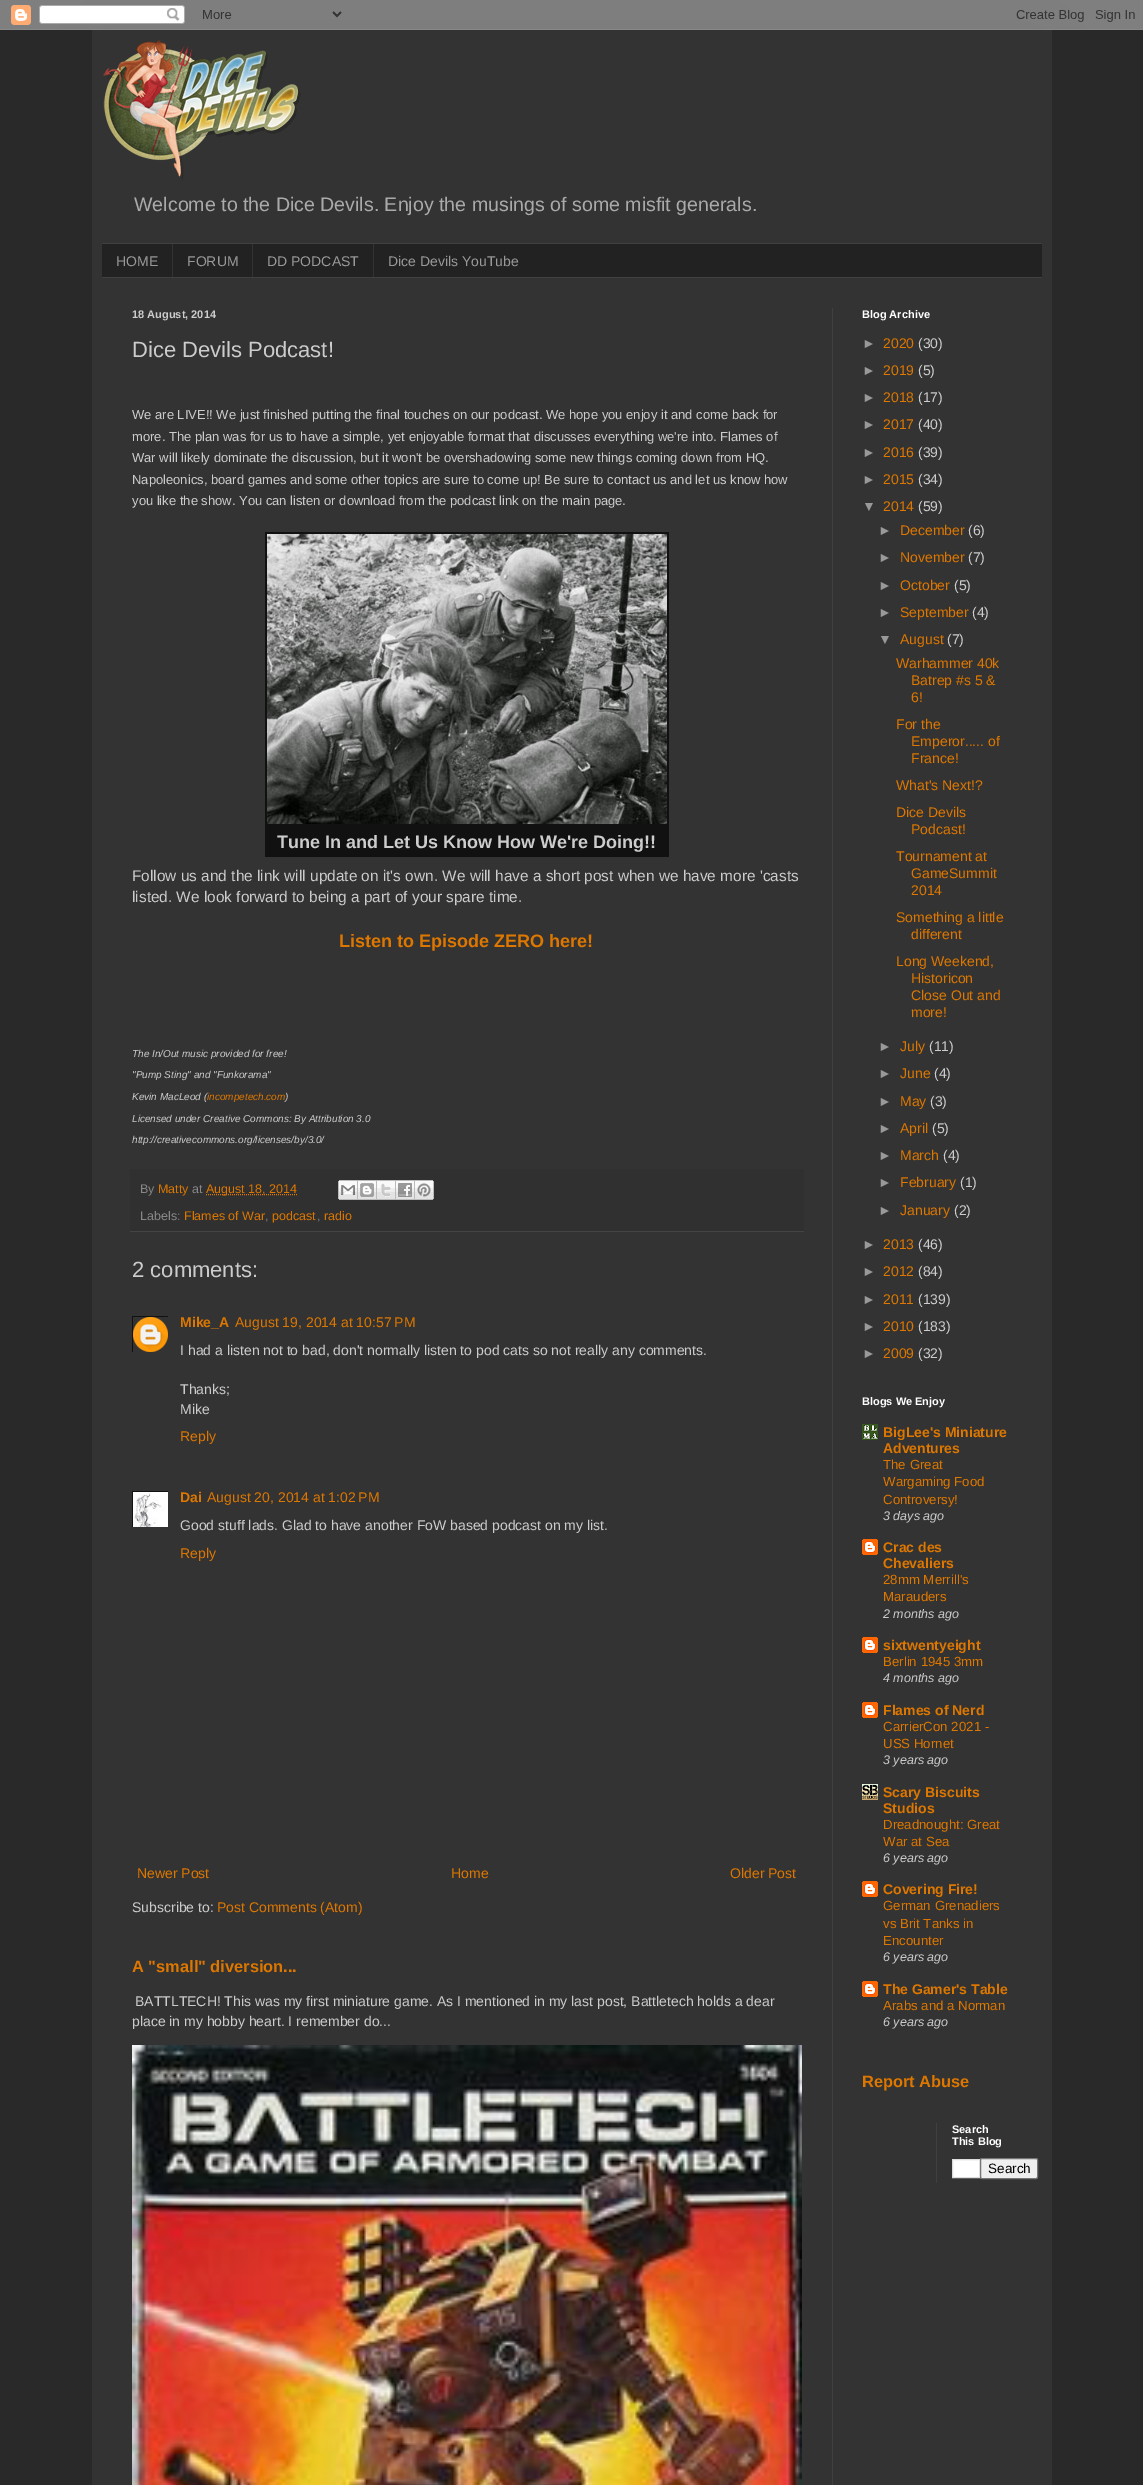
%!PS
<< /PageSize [1143 2485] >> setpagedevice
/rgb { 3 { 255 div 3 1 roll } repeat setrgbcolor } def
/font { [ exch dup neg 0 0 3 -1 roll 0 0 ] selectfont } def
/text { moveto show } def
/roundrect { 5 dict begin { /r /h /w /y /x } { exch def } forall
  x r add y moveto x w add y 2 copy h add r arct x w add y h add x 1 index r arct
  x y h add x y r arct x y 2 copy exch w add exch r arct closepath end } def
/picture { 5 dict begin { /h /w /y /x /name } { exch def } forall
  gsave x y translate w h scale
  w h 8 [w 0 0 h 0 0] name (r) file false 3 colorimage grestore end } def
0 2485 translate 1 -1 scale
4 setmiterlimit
41 41 41 rgb
0 0 1143 2485 rectfill
(img_01.rgb) 0 0 1143 30 picture
51 51 51 rgb
92 30 960 2455 rectfill
(img_02.rgb) 103 40 198 140 picture
34 34 34 rgb
102 244 940 33 rectfill
64 64 64 rgb
102 243 940 1 rectfill
102 277 940 1 rectfill
51 51 51 rgb
172 244 1 33 rectfill
252 244 1 33 rectfill
373 244 1 33 rectfill
64 64 64 rgb
832 308 1 2177 rectfill
17 17 17 rgb
265 532 404 325 rectfill
(img_03.rgb) 267 534 400 290 picture
48 48 48 rgb
130 1169 674 62 rectfill
68 68 68 rgb
130 1231 674 1 rectfill
221 119 0 rgb
[1 1] 0 setdash
206 1194.5 moveto 92 0 rlineto stroke
(img_04.rgb) 338 1180 20 20 picture
(img_05.rgb) 358 1180 19 20 picture
(img_06.rgb) 377 1180 19 20 picture
(img_07.rgb) 396 1180 19 20 picture
(img_08.rgb) 415 1180 19 20 picture
gsave
132 1316 36 36 rectclip
17 17 17 rgb
[] 0 setdash
132.5 1316.5 36 36 rectstroke
grestore
(img_09.rgb) 133 1317 35 35 picture
gsave
132 1491 36 36 rectclip
17 17 17 rgb
[] 0 setdash
132.5 1491.5 37 37 rectstroke
grestore
(img_10.rgb) 133 1492 35 35 picture
(img_11.rgb) 132 2045 670 440 picture
(img_12.rgb) 862 1424 16 16 picture
(img_13.rgb) 862 1539 16 16 picture
(img_13.rgb) 862 1637 16 16 picture
(img_13.rgb) 862 1702 16 16 picture
(img_14.rgb) 862 1784 16 16 picture
(img_13.rgb) 862 1881 16 16 picture
(img_13.rgb) 862 1981 16 16 picture
64 64 64 rgb
936 2123 1 60 rectfill
255 255 255 rgb
952.5 2159.5 moveto 27 0 rlineto 0 18 rlineto -27 0 rlineto closepath gsave fill grestore
221 221 221 rgb
[] 0 setdash
stroke
239 239 239 rgb
980.5 2158.5 57 20 1.5 roundrect gsave fill grestore
118 118 118 rgb
stroke
/LiberationSans-Regular 19.6 font
170 170 170 rgb
(Welcome to the Dice Devils. Enjoy the musings of some misfit generals.) 134 211 text
/LiberationSans-Regular 14 font
153 153 153 rgb
(HOME) 116 266 text
(FORUM) 187 266 text
(DD PODCAST) 267 266 text
(Dice Devils YouTube) 388 266 text
/LiberationSans-Bold 11 font
204 204 204 rgb
(18 August, 2014) 132 318 text
/LiberationSans-Regular 22 font
(Dice Devils Podcast!) 132 357 text
/LiberationSans-Regular 13 font
(We are LIVE!! We just finished putting the final touches on our podcast. We hope you enjoy it and come back for) 132 419 text
(more. The plan was for us to have a simple, yet enjoyable format that discusses everything we're into. Flames of) 132 441 text
(War will likely dominate the discussion, but it won't be overshadowing some new things coming down from HQ.) 132 462 text
(Napoleonics, board games and some other topics are sure to come up! Be sure to contact us and let us know how) 132 484 text
(you like the show. You can listen or download from the podcast link on the main page.) 132 505 text
/LiberationSans-Bold 18 font
(Tune In and Let Us Know How We're Doing!!) 277 848 text
/LiberationSans-Regular 15.4 font
(Follow us and the link will update on it's own. We will have a short post when we have more 'casts) 132 881 text
(listed. We look forward to being a part of your spare time.) 132 902 text
/LiberationSans-Bold 18 font
221 119 0 rgb
(Listen to Episode ZERO here!) 339 947 text
/LiberationSans-Italic 10 font
204 204 204 rgb
(The In/Out music provided for free!) 132 1057 text
("Pump Sting" and "Funkorama") 132 1078 text
(Kevin MacLeod \() 132 1100 text
221 119 0 rgb
(incompetech.com) 207 1100 text
204 204 204 rgb
(\)) 285 1100 text
(Licensed under Creative Commons: By Attribution 3.0) 132 1122 text
(http://creativecommons.org/licenses/by/3.0/) 132 1143 text
/LiberationSans-Regular 12.5 font
136 136 136 rgb
(By) 140 1193 text
221 119 0 rgb
(Matty) 158 1193 text
136 136 136 rgb
(at) 192 1193 text
221 119 0 rgb
(August 18, 2014) 206 1193 text
136 136 136 rgb
(Labels:) 140 1220 text
221 119 0 rgb
(Flames of War) 184 1220 text
136 136 136 rgb
(,) 265 1220 text
221 119 0 rgb
(podcast) 272 1220 text
136 136 136 rgb
(,) 317 1220 text
221 119 0 rgb
(radio) 324 1220 text
/LiberationSans-Regular 22 font
204 204 204 rgb
(2 comments:) 132 1277 text
/LiberationSans-Bold 14 font
221 119 0 rgb
(Mike_A) 180 1327 text
/LiberationSans-Regular 14 font
(August 19, 2014 at 10:57 PM) 235 1327 text
204 204 204 rgb
(I had a listen not to bad, don't normally listen to pod cats so not really any comments.) 180 1355 text
(Thanks;) 180 1394 text
(Mike) 180 1414 text
221 119 0 rgb
(Reply) 180 1441 text
/LiberationSans-Bold 14 font
(Dai) 180 1502 text
/LiberationSans-Regular 14 font
(August 20, 2014 at 1:02 PM) 207 1502 text
204 204 204 rgb
(Good stuff lads. Glad to have another FoW based podcast on my list.) 180 1530 text
221 119 0 rgb
(Reply) 180 1558 text
(Newer Post) 137 1878 text
(Home) 451 1878 text
(Older Post) 730 1878 text
204 204 204 rgb
(Subscribe to:) 132 1912 text
221 119 0 rgb
(Post Comments \(Atom\)) 217 1912 text
/LiberationSans-Bold 16.4 font
(A "small" diversion...) 132 1972 text
/LiberationSans-Regular 14 font
204 204 204 rgb
(BATTLTECH! This was my first miniature game. As I mentioned in my last post, Battletech holds a dear) 135 2006 text
(place in my hobby heart. I remember do...) 132 2026 text
/LiberationSans-Bold 11 font
255 255 255 rgb
(Blog Archive) 862 318 text
/LiberationSans-Regular 14 font
153 153 153 rgb
(►) 862 348 text
221 119 0 rgb
(2020) 883 348 text
204 204 204 rgb
(\(30\)) 918 348 text
153 153 153 rgb
(►) 862 375 text
221 119 0 rgb
(2019) 883 375 text
204 204 204 rgb
(\(5\)) 918 375 text
153 153 153 rgb
(►) 862 402 text
221 119 0 rgb
(2018) 883 402 text
204 204 204 rgb
(\(17\)) 918 402 text
153 153 153 rgb
(►) 862 429 text
221 119 0 rgb
(2017) 883 429 text
204 204 204 rgb
(\(40\)) 918 429 text
153 153 153 rgb
(►) 862 457 text
221 119 0 rgb
(2016) 883 457 text
204 204 204 rgb
(\(39\)) 918 457 text
153 153 153 rgb
(►) 862 484 text
221 119 0 rgb
(2015) 883 484 text
204 204 204 rgb
(\(34\)) 918 484 text
153 153 153 rgb
(▼) 862 511 text
221 119 0 rgb
(2014) 883 511 text
204 204 204 rgb
(\(59\)) 918 511 text
153 153 153 rgb
(►) 878 535 text
221 119 0 rgb
(December) 900 535 text
204 204 204 rgb
(\(6\)) 968 535 text
153 153 153 rgb
(►) 878 562 text
221 119 0 rgb
(November) 900 562 text
204 204 204 rgb
(\(7\)) 968 562 text
153 153 153 rgb
(►) 878 590 text
221 119 0 rgb
(October) 900 590 text
204 204 204 rgb
(\(5\)) 954 590 text
153 153 153 rgb
(►) 878 617 text
221 119 0 rgb
(September) 900 617 text
204 204 204 rgb
(\(4\)) 972 617 text
153 153 153 rgb
(▼) 878 644 text
221 119 0 rgb
(August) 900 644 text
204 204 204 rgb
(\(7\)) 947 644 text
221 119 0 rgb
(Warhammer 40k) 896 668 text
(Batrep #s 5 &) 911 685 text
(6!) 911 702 text
(For the) 896 729 text
(Emperor..... of) 911 746 text
(France!) 911 763 text
(What's Next!?) 896 790 text
(Dice Devils) 896 817 text
(Podcast!) 911 834 text
(Tournament at) 896 861 text
(GameSummit) 911 878 text
(2014) 911 895 text
(Something a little) 896 922 text
(different) 911 939 text
(Long Weekend,) 896 966 text
(Historicon) 911 983 text
(Close Out and) 911 1000 text
(more!) 911 1017 text
153 153 153 rgb
(►) 878 1051 text
221 119 0 rgb
(July) 900 1051 text
204 204 204 rgb
(\(11\)) 929 1051 text
153 153 153 rgb
(►) 878 1078 text
221 119 0 rgb
(June) 900 1078 text
204 204 204 rgb
(\(4\)) 934 1078 text
153 153 153 rgb
(►) 878 1106 text
221 119 0 rgb
(May) 900 1106 text
204 204 204 rgb
(\(3\)) 930 1106 text
153 153 153 rgb
(►) 878 1133 text
221 119 0 rgb
(April) 900 1133 text
204 204 204 rgb
(\(5\)) 932 1133 text
153 153 153 rgb
(►) 878 1160 text
221 119 0 rgb
(March) 900 1160 text
204 204 204 rgb
(\(4\)) 943 1160 text
153 153 153 rgb
(►) 878 1187 text
221 119 0 rgb
(February) 900 1187 text
204 204 204 rgb
(\(1\)) 960 1187 text
153 153 153 rgb
(►) 878 1215 text
221 119 0 rgb
(January) 900 1215 text
204 204 204 rgb
(\(2\)) 954 1215 text
153 153 153 rgb
(►) 862 1249 text
221 119 0 rgb
(2013) 883 1249 text
204 204 204 rgb
(\(46\)) 918 1249 text
153 153 153 rgb
(►) 862 1276 text
221 119 0 rgb
(2012) 883 1276 text
204 204 204 rgb
(\(84\)) 918 1276 text
153 153 153 rgb
(►) 862 1304 text
221 119 0 rgb
(2011) 883 1304 text
204 204 204 rgb
(\(139\)) 918 1304 text
153 153 153 rgb
(►) 862 1331 text
221 119 0 rgb
(2010) 883 1331 text
204 204 204 rgb
(\(183\)) 918 1331 text
153 153 153 rgb
(►) 862 1358 text
221 119 0 rgb
(2009) 883 1358 text
204 204 204 rgb
(\(32\)) 918 1358 text
/LiberationSans-Bold 11 font
255 255 255 rgb
(Blogs We Enjoy) 862 1405 text
/LiberationSans-Bold 14 font
221 119 0 rgb
(BigLee's Miniature) 883 1437 text
(Adventures) 883 1453 text
/LiberationSans-Regular 13.25 font
(The Great) 883 1469 text
(Wargaming Food) 883 1486 text
(Controversy!) 883 1504 text
/LiberationSans-Italic 12.5 font
204 204 204 rgb
(3 days ago) 883 1520 text
/LiberationSans-Bold 14 font
221 119 0 rgb
(Crac des) 883 1552 text
(Chevaliers) 883 1568 text
/LiberationSans-Regular 13.25 font
(28mm Merrill's) 883 1584 text
(Marauders) 883 1601 text
/LiberationSans-Italic 12.5 font
204 204 204 rgb
(2 months ago) 883 1618 text
/LiberationSans-Bold 14 font
221 119 0 rgb
(sixtwentyeight) 883 1650 text
/LiberationSans-Regular 13.25 font
(Berlin 1945 3mm) 883 1666 text
/LiberationSans-Italic 12.5 font
204 204 204 rgb
(4 months ago) 883 1682 text
/LiberationSans-Bold 14 font
221 119 0 rgb
(Flames of Nerd) 883 1715 text
/LiberationSans-Regular 13.25 font
(CarrierCon 2021 -) 883 1731 text
(USS Hornet) 883 1748 text
/LiberationSans-Italic 12.5 font
204 204 204 rgb
(3 years ago) 883 1764 text
/LiberationSans-Bold 14 font
221 119 0 rgb
(Scary Biscuits) 883 1797 text
(Studios) 883 1813 text
/LiberationSans-Regular 13.25 font
(Dreadnought: Great) 883 1829 text
(War at Sea) 883 1846 text
/LiberationSans-Italic 12.5 font
204 204 204 rgb
(6 years ago) 883 1862 text
/LiberationSans-Bold 14 font
221 119 0 rgb
(Covering Fire!) 883 1894 text
/LiberationSans-Regular 13.25 font
(German Grenadiers) 883 1910 text
(vs Brit Tanks in) 883 1928 text
(Encounter) 883 1945 text
/LiberationSans-Italic 12.5 font
204 204 204 rgb
(6 years ago) 883 1961 text
/LiberationSans-Bold 14 font
221 119 0 rgb
(The Gamer's Table) 883 1994 text
/LiberationSans-Regular 13.25 font
(Arabs and a Norman) 883 2010 text
/LiberationSans-Italic 12.5 font
204 204 204 rgb
(6 years ago) 883 2026 text
/LiberationSans-Bold 16.4 font
221 119 0 rgb
(Report Abuse) 862 2087 text
/LiberationSans-Bold 11 font
255 255 255 rgb
(Search) 952 2133 text
(This Blog) 952 2145 text
/LiberationSans-Regular 13.5 font
0 0 0 rgb
(Search) 988 2173 text
showpage
